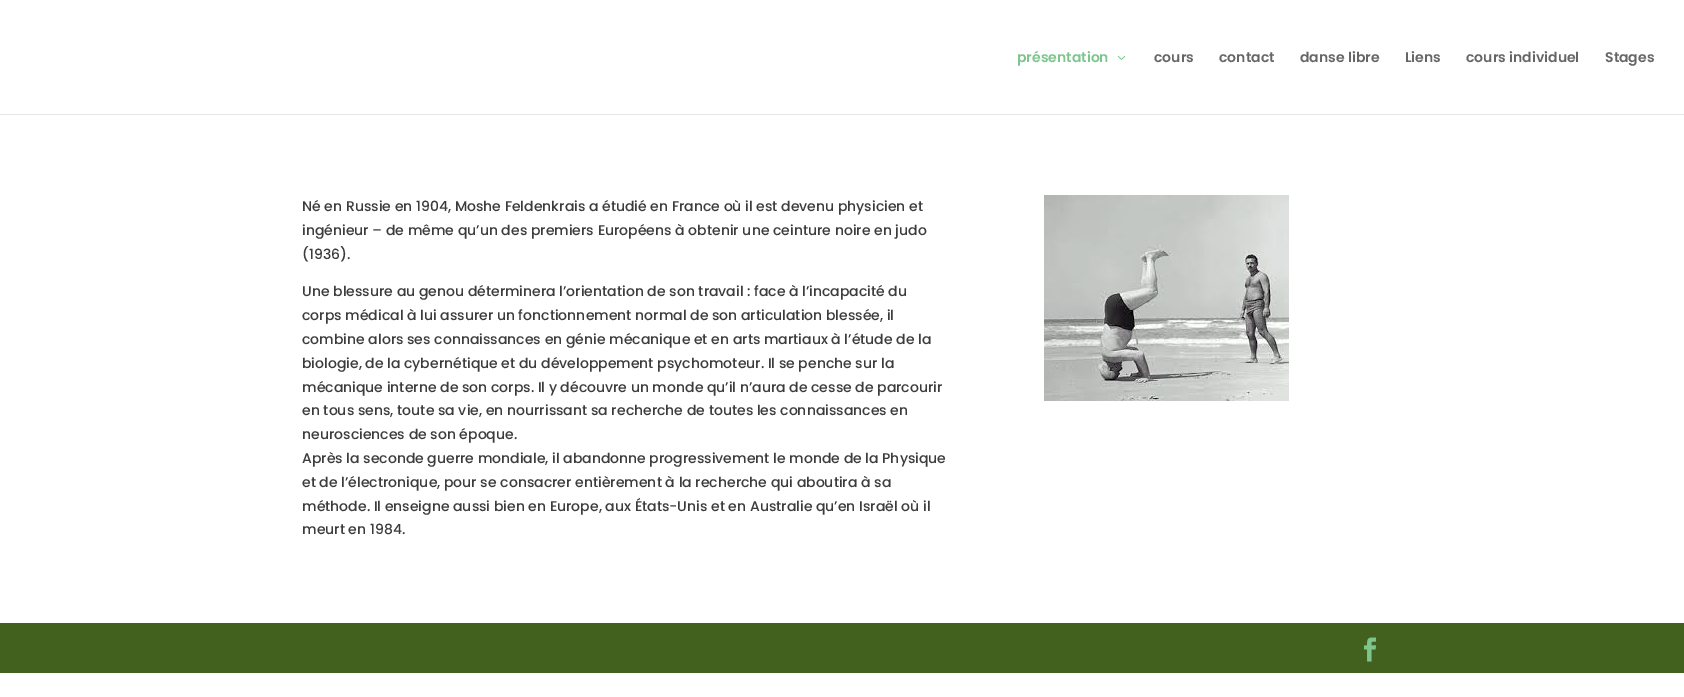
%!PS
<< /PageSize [1684 697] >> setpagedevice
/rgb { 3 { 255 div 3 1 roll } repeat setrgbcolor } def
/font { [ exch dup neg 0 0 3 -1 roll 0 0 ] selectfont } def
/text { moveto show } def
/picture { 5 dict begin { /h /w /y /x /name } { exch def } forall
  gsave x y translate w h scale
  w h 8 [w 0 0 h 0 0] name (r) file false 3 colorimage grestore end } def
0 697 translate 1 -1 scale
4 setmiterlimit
255 255 255 rgb
0 0 1684 697 rectfill
230 230 230 rgb
0 114 1684 1 rectfill
(img_01.rgb) 1117 55 9 5 picture
(img_02.rgb) 1044 195 245 206 picture
66 97 30 rgb
0 623 1684 50 rectfill
(img_03.rgb) 1364 637 12 25 picture
/Poppins-SemiBold 14 font
124 198 141 rgb
(présentation) 1017 62 text
102 102 102 rgb
(cours) 1154 62 text
(contact) 1219 62 text
(danse libre) 1300 62 text
(Liens) 1405 62 text
(cours individuel) 1466 62 text
(Stages) 1605 62 text
/Poppins-Medium 14 font
60 60 59 rgb
(Né en Russie en 1904, Moshe Feldenkrais a étudié en France où il est devenu physicien et) 302 211 text
(ingénieur – de même qu’un des premiers Européens à obtenir une ceinture noire en judo) 302 235 text
(\(1936\).) 302 259 text
(Une blessure au genou déterminera l’orientation de son travail : face à l’incapacité du) 302 296 text
(corps médical à lui assurer un fonctionnement normal de son articulation blessée, il) 302 320 text
(combine alors ses connaissances en génie mécanique et en arts martiaux à l’étude de la) 302 344 text
(biologie, de la cybernétique et du développement psychomoteur. Il se penche sur la) 302 368 text
(mécanique interne de son corps. Il y découvre un monde qu’il n’aura de cesse de parcourir) 302 392 text
(en tous sens, toute sa vie, en nourrissant sa recherche de toutes les connaissances en) 302 415 text
(neurosciences de son époque.) 302 439 text
(Après la seconde guerre mondiale, il abandonne progressivement le monde de la Physique) 302 463 text
(et de l’électronique, pour se consacrer entièrement à la recherche qui aboutira à sa) 302 487 text
(méthode. Il enseigne aussi bien en Europe, aux États-Unis et en Australie qu’en Israël où il) 302 511 text
(meurt en 1984.) 302 534 text
showpage
